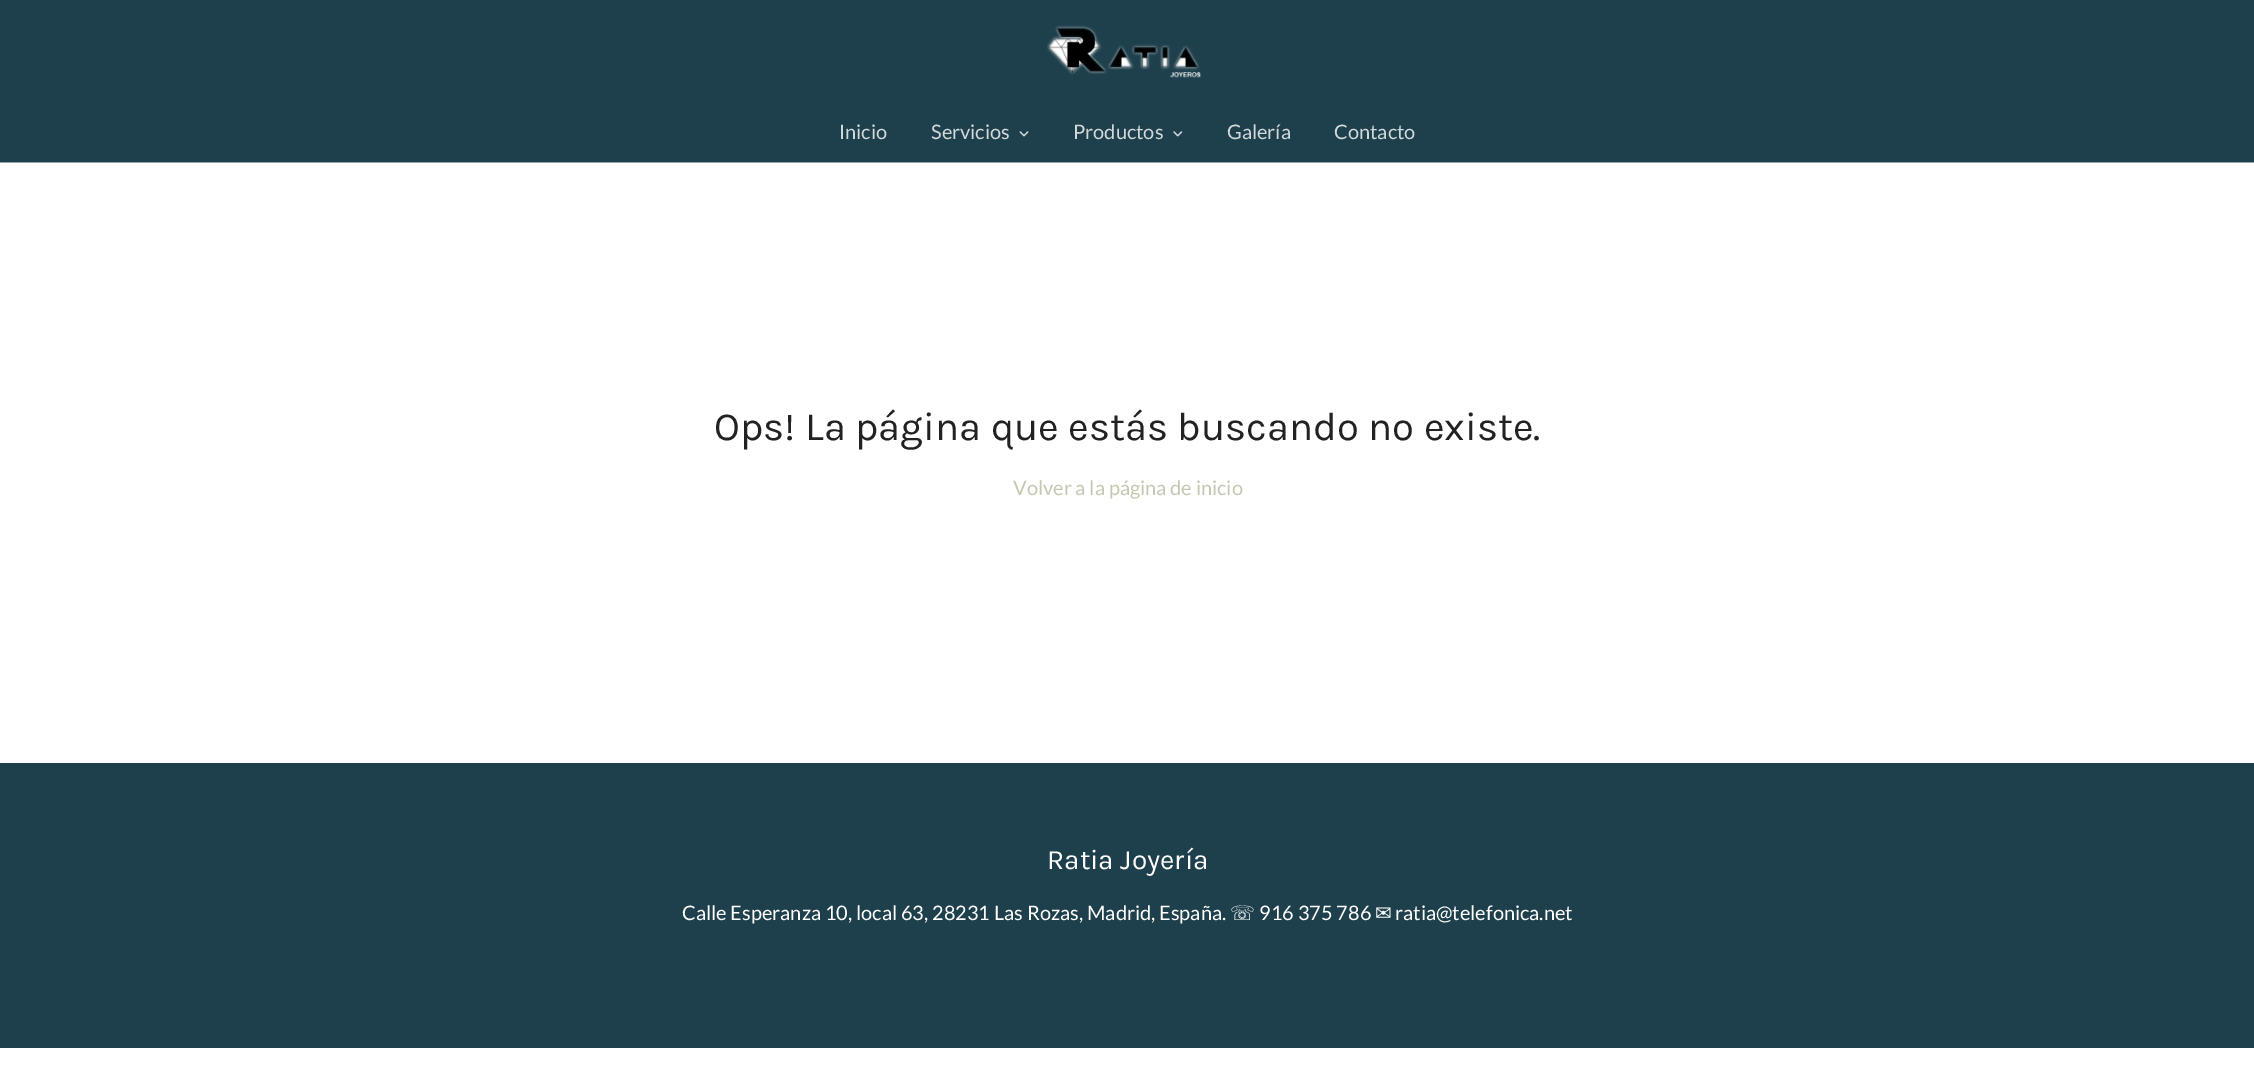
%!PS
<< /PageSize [2254 1079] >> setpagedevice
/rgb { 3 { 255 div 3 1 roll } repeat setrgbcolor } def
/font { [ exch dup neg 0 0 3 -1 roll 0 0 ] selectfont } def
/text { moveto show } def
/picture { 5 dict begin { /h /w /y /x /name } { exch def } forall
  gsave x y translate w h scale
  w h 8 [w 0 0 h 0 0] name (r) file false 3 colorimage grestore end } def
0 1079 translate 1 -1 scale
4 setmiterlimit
255 255 255 rgb
0 0 2254 1079 rectfill
30 64 76 rgb
0 0 2254 162 rectfill
gsave
0 0 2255 163 rectclip
152 162 166 rgb
-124 -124 moveto 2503 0 rlineto 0 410 rlineto -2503 0 rlineto closepath 0 -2 moveto 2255 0 rlineto 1 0 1 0 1 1 rcurveto 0 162 rlineto 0 1 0 1 -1 1 rcurveto -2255 0 rlineto -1 0 -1 0 -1 -1 rcurveto 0 -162 rlineto 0 -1 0 -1 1 -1 rcurveto closepath eofill
grestore
(img_01.rgb) 1047 25 154 53 picture
(img_02.rgb) 1019 131 10 6 picture
(img_03.rgb) 1173 131 10 6 picture
0 763 2254 285 rectfill
/Lato-Regular 20 font
210 217 219 rgb
(Inicio) 839 139 text
(Servicios) 931 139 text
(Productos) 1073 139 text
(Galería) 1227 139 text
(Contacto) 1334 139 text
/Karla-Regular 40 font
34 34 34 rgb
(Ops! La página que estás buscando no existe.) 714 440 text
/Lato-Regular 20 font
198 199 178 rgb
(Volver a la página de inicio) 1013 495 text
/Karla-Regular 28 font
255 255 255 rgb
(Ratia Joyería) 1047 869 text
/Lato-Regular 20 font
(Calle Esperanza 10, local 63, 28231 Las Rozas, Madrid, España.) 682 920 text
/DejaVuSans-Regular 20 font
(☏) 1230 920 text
/Lato-Regular 20 font
(916 375 786) 1259 920 text
/DejaVuSans-Regular 20 font
(✉) 1375 920 text
/Lato-Regular 20 font
(ratia@telefonica.net) 1395 920 text
showpage
